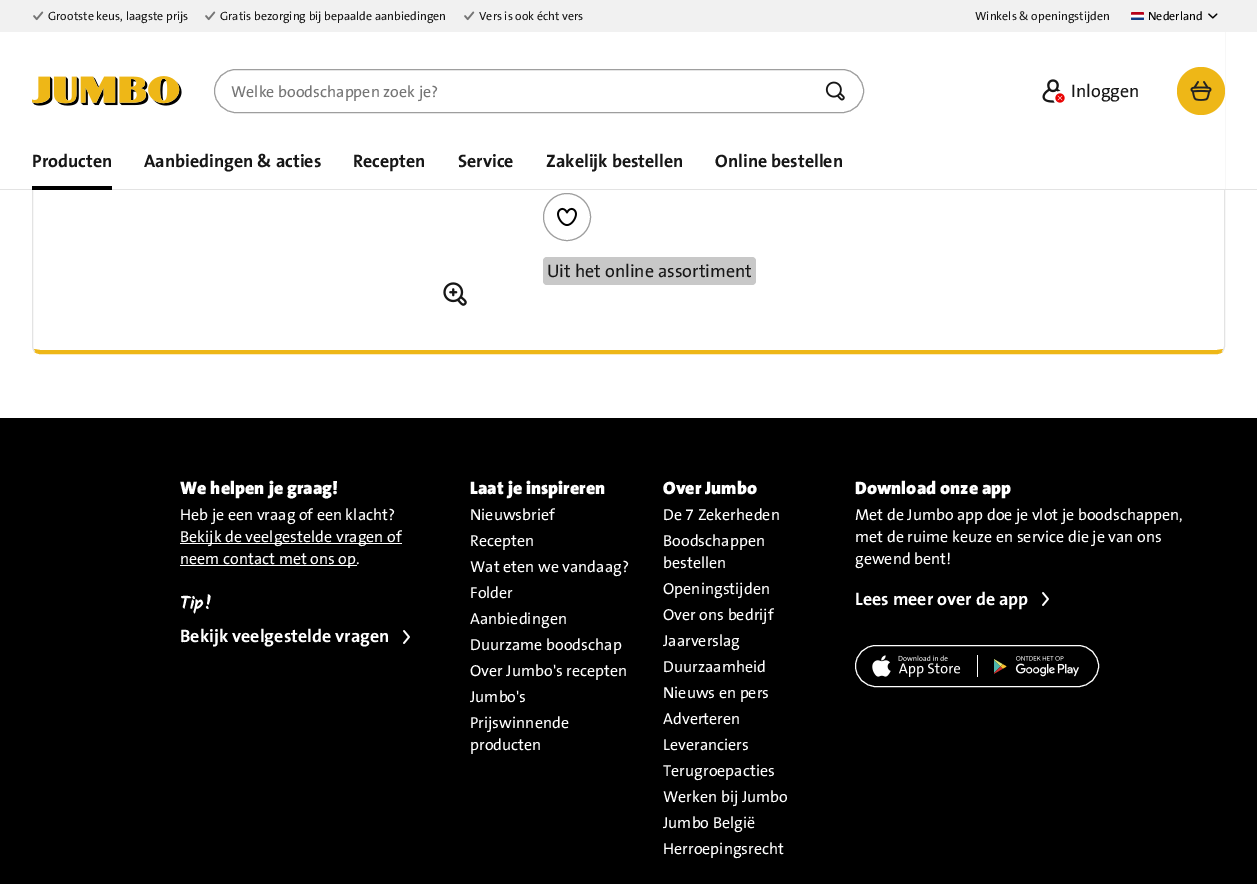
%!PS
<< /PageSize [1257 884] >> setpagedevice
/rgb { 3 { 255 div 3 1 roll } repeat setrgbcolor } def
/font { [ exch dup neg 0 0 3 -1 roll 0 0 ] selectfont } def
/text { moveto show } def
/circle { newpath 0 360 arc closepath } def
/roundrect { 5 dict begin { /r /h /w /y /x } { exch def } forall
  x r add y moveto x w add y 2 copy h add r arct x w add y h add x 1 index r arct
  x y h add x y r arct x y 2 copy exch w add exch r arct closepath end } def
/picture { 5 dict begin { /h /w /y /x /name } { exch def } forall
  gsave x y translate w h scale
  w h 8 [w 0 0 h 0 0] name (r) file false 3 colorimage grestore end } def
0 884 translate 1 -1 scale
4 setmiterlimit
255 255 255 rgb
0 0 1257 884 rectfill
238 183 23 rgb
34 349 moveto 1 3 3 4 6 4 rcurveto 1177 0 rlineto 3 0 5 -1 6 -4 rcurveto -6 1 rlineto -1177 0 rlineto closepath fill
1222.5 351.5 moveto -1.5 1 -3.5 2 -5.5 2 rcurveto -1177 0 rlineto -2 0 -4 -1 -5.5 -2 rcurveto stroke
227 227 227 rgb
34.5 351.5 moveto -1 -1.5 -2 -3.5 -2 -5.5 rcurveto 0 -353 rlineto 0 -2 1 -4 2 -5.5 rcurveto 1.5 -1 3.5 -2 5.5 -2 rcurveto 1177 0 rlineto 2 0 4 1 5.5 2 rcurveto 1 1.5 2 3.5 2 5.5 rcurveto 0 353 rlineto 0 2 -1 4 -2 5.5 rcurveto stroke
255 255 255 rgb
32 32 1193 157 rectfill
227 227 227 rgb
0 189 1257 1 rectfill
241 241 241 rgb
0 0 1257 32 rectfill
(img_01.rgb) 33 11 11 10 picture
(img_01.rgb) 205 11 11 10 picture
(img_01.rgb) 464 11 11 10 picture
(img_02.rgb) 1131 12 13 8 picture
(img_03.rgb) 1208 13 10 6 picture
(img_04.rgb) 32 76 150 30 picture
158 158 158 rgb
214.5 69.5 649 43 21.5 roundrect stroke
(img_05.rgb) 825 81 20 20 picture
(img_06.rgb) 1042 79 23 24 picture
238 183 23 rgb
1201 91 24 circle fill
(img_07.rgb) 1190 81 22 20 picture
0 0 0 rgb
32 186 80 4 rectfill
158 158 158 rgb
567 217 23.5 circle stroke
(img_08.rgb) 557 207 20 19 picture
200 200 200 rgb
543 257 213 28 4 roundrect fill
(img_09.rgb) 443 282 24 24 picture
0 0 0 rgb
0 418 1257 466 rectfill
255 255 255 rgb
180 543 222 1 rectfill
180 565 177 1 rectfill
(img_10.rgb) 403 630 7 14 picture
(img_10.rgb) 1042 592 7 14 picture
855.5 645.5 243 41 20.5 roundrect stroke
(img_11.rgb) 872 655 89 22 picture
977 655 1 22 rectfill
(img_12.rgb) 994 656 85 21 picture
/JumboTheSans-Regular 12 font
23 23 23 rgb
(Grootste keus, laagste prijs) 48 20 text
(Gratis bezorging bij bepaalde aanbiedingen) 220 20 text
(Vers is ook écht vers) 479 20 text
(Winkels & openingstijden) 975 20 text
0 0 0 rgb
(Nederland) 1148 20 text
/JumboTheSans-Regular 16 font
117 117 117 rgb
(Welke boodschappen zoek je?) 231 97 text
/JumboTheSans-Regular 18 font
23 23 23 rgb
(Inloggen) 1071 97 text
/JumboTheSans-Bold 18 font
(Producten) 32 167 text
(Aanbiedingen & acties) 144 167 text
(Recepten) 353 167 text
(Service) 458 167 text
(Zakelijk bestellen) 546 167 text
(Online bestellen) 715 167 text
/JumboTheSans-Regular 18 font
(Uit het online assortiment) 547 277 text
/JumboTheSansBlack-Black 18 font
255 255 255 rgb
(We helpen je graag!) 180 494 text
/JumboTheSans-Regular 16 font
(Heb je een vraag of een klacht?) 180 520 text
(Bekijk de veelgestelde vragen of) 180 542 text
(neem contact met ons op.) 180 564 text
/Kalam-Bold 18 font
(Tip!) 180 609 text
/JumboTheSans-Bold 18 font
(Bekijk veelgestelde vragen) 180 642 text
/JumboTheSansBlack-Black 18 font
(Laat je inspireren) 470 494 text
/JumboTheSans-Regular 16 font
(Nieuwsbrief) 470 520 text
(Recepten) 470 546 text
(Wat eten we vandaag?) 470 572 text
(Folder) 470 598 text
(Aanbiedingen) 470 624 text
(Duurzame boodschap) 470 650 text
(Over Jumbo's recepten) 470 676 text
(Jumbo's) 470 702 text
(Prijswinnende) 470 728 text
(producten) 470 750 text
/JumboTheSansBlack-Black 18 font
(Over Jumbo) 663 494 text
/JumboTheSans-Regular 16 font
(De 7 Zekerheden) 663 520 text
(Boodschappen) 663 546 text
(bestellen) 663 568 text
(Openingstijden) 663 594 text
(Over ons bedrijf) 663 620 text
(Jaarverslag) 663 646 text
(Duurzaamheid) 663 672 text
(Nieuws en pers) 663 698 text
(Adverteren) 663 724 text
(Leveranciers) 663 750 text
(Terugroepacties) 663 776 text
(Werken bij Jumbo) 663 802 text
(Jumbo België) 663 828 text
(Herroepingsrecht) 663 854 text
/JumboTheSansBlack-Black 18 font
(Download onze app) 855 494 text
/JumboTheSans-Regular 16 font
(Met de Jumbo app doe je vlot je boodschappen,) 855 520 text
(met de ruime keuze en service die je van ons) 855 542 text
(gewend bent!) 855 564 text
/JumboTheSans-Bold 18 font
(Lees meer over de app) 855 605 text
showpage
